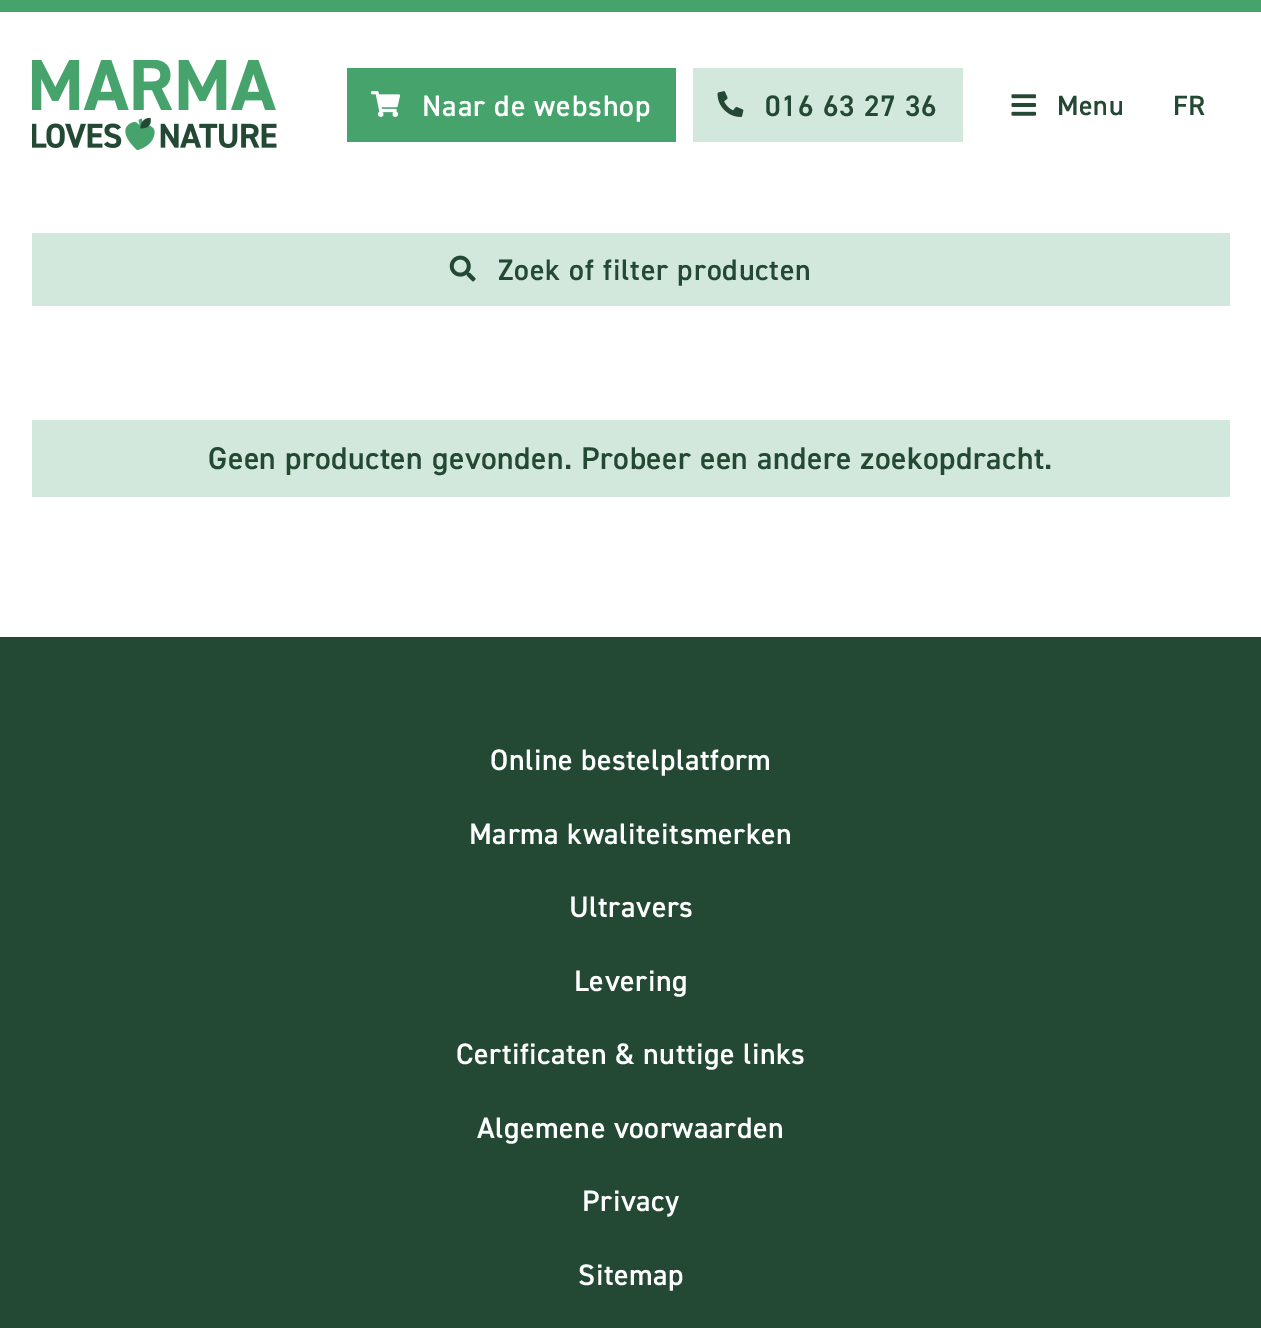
%!PS
<< /PageSize [1261 1328] >> setpagedevice
/rgb { 3 { 255 div 3 1 roll } repeat setrgbcolor } def
/font { [ exch dup neg 0 0 3 -1 roll 0 0 ] selectfont } def
/picture { 5 dict begin { /h /w /y /x /name } { exch def } forall
  gsave x y translate w h scale
  w h 8 [w 0 0 h 0 0] name (r) file false 3 colorimage grestore end } def
0 1328 translate 1 -1 scale
4 setmiterlimit
255 255 255 rgb
0 0 1261 1328 rectfill
69 163 107 rgb
0 0 1261 12 rectfill
(img_01.rgb) 32 60 245 91 picture
347 68 329 74 rectfill
(img_02.rgb) 371 91 30 26 picture
211 232 220 rgb
693 68 270 74 rectfill
(img_03.rgb) 717 91 27 26 picture
(img_04.rgb) 1011 94 25 22 picture
32 233 1198 73 rectfill
(img_05.rgb) 449 255 27 27 picture
32 420 1198 77 rectfill
35 73 52 rgb
0 637 1261 691 rectfill
/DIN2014-SemiBold 29.75 font
255 255 255 rgb
422 116 moveto 0.9 0 (Naar de webshop) ashow
35 73 52 rgb
765 116 moveto 0.9 0 (016 63 27 36) ashow
/DIN2014-SemiBold 28 font
1057 115 moveto 0.53 0 (Menu) ashow
1173 115 moveto 0.53 0 (FR) ashow
/DIN2014-SemiBold 29.75 font
498 280 moveto 0.9 0 (Zoek of filter producten) ashow
/DIN2014-SemiBold 31.5 font
208 469 moveto 0.53 0 (Geen producten gevonden. Probeer een andere zoekopdracht.) ashow
/DIN2014-SemiBold 29.75 font
255 255 255 rgb
490 770 moveto 0.53 0 (Online bestelplatform) ashow
469 844 moveto 0.53 0 (Marma kwaliteitsmerken) ashow
569 917 moveto 0.53 0 (Ultravers) ashow
574 991 moveto 0.53 0 (Levering) ashow
456 1064 moveto 0.53 0 (Certificaten & nuttige links) ashow
477 1138 moveto 0.53 0 (Algemene voorwaarden) ashow
582 1211 moveto 0.53 0 (Privacy) ashow
578 1285 moveto 0.53 0 (Sitemap) ashow
showpage
